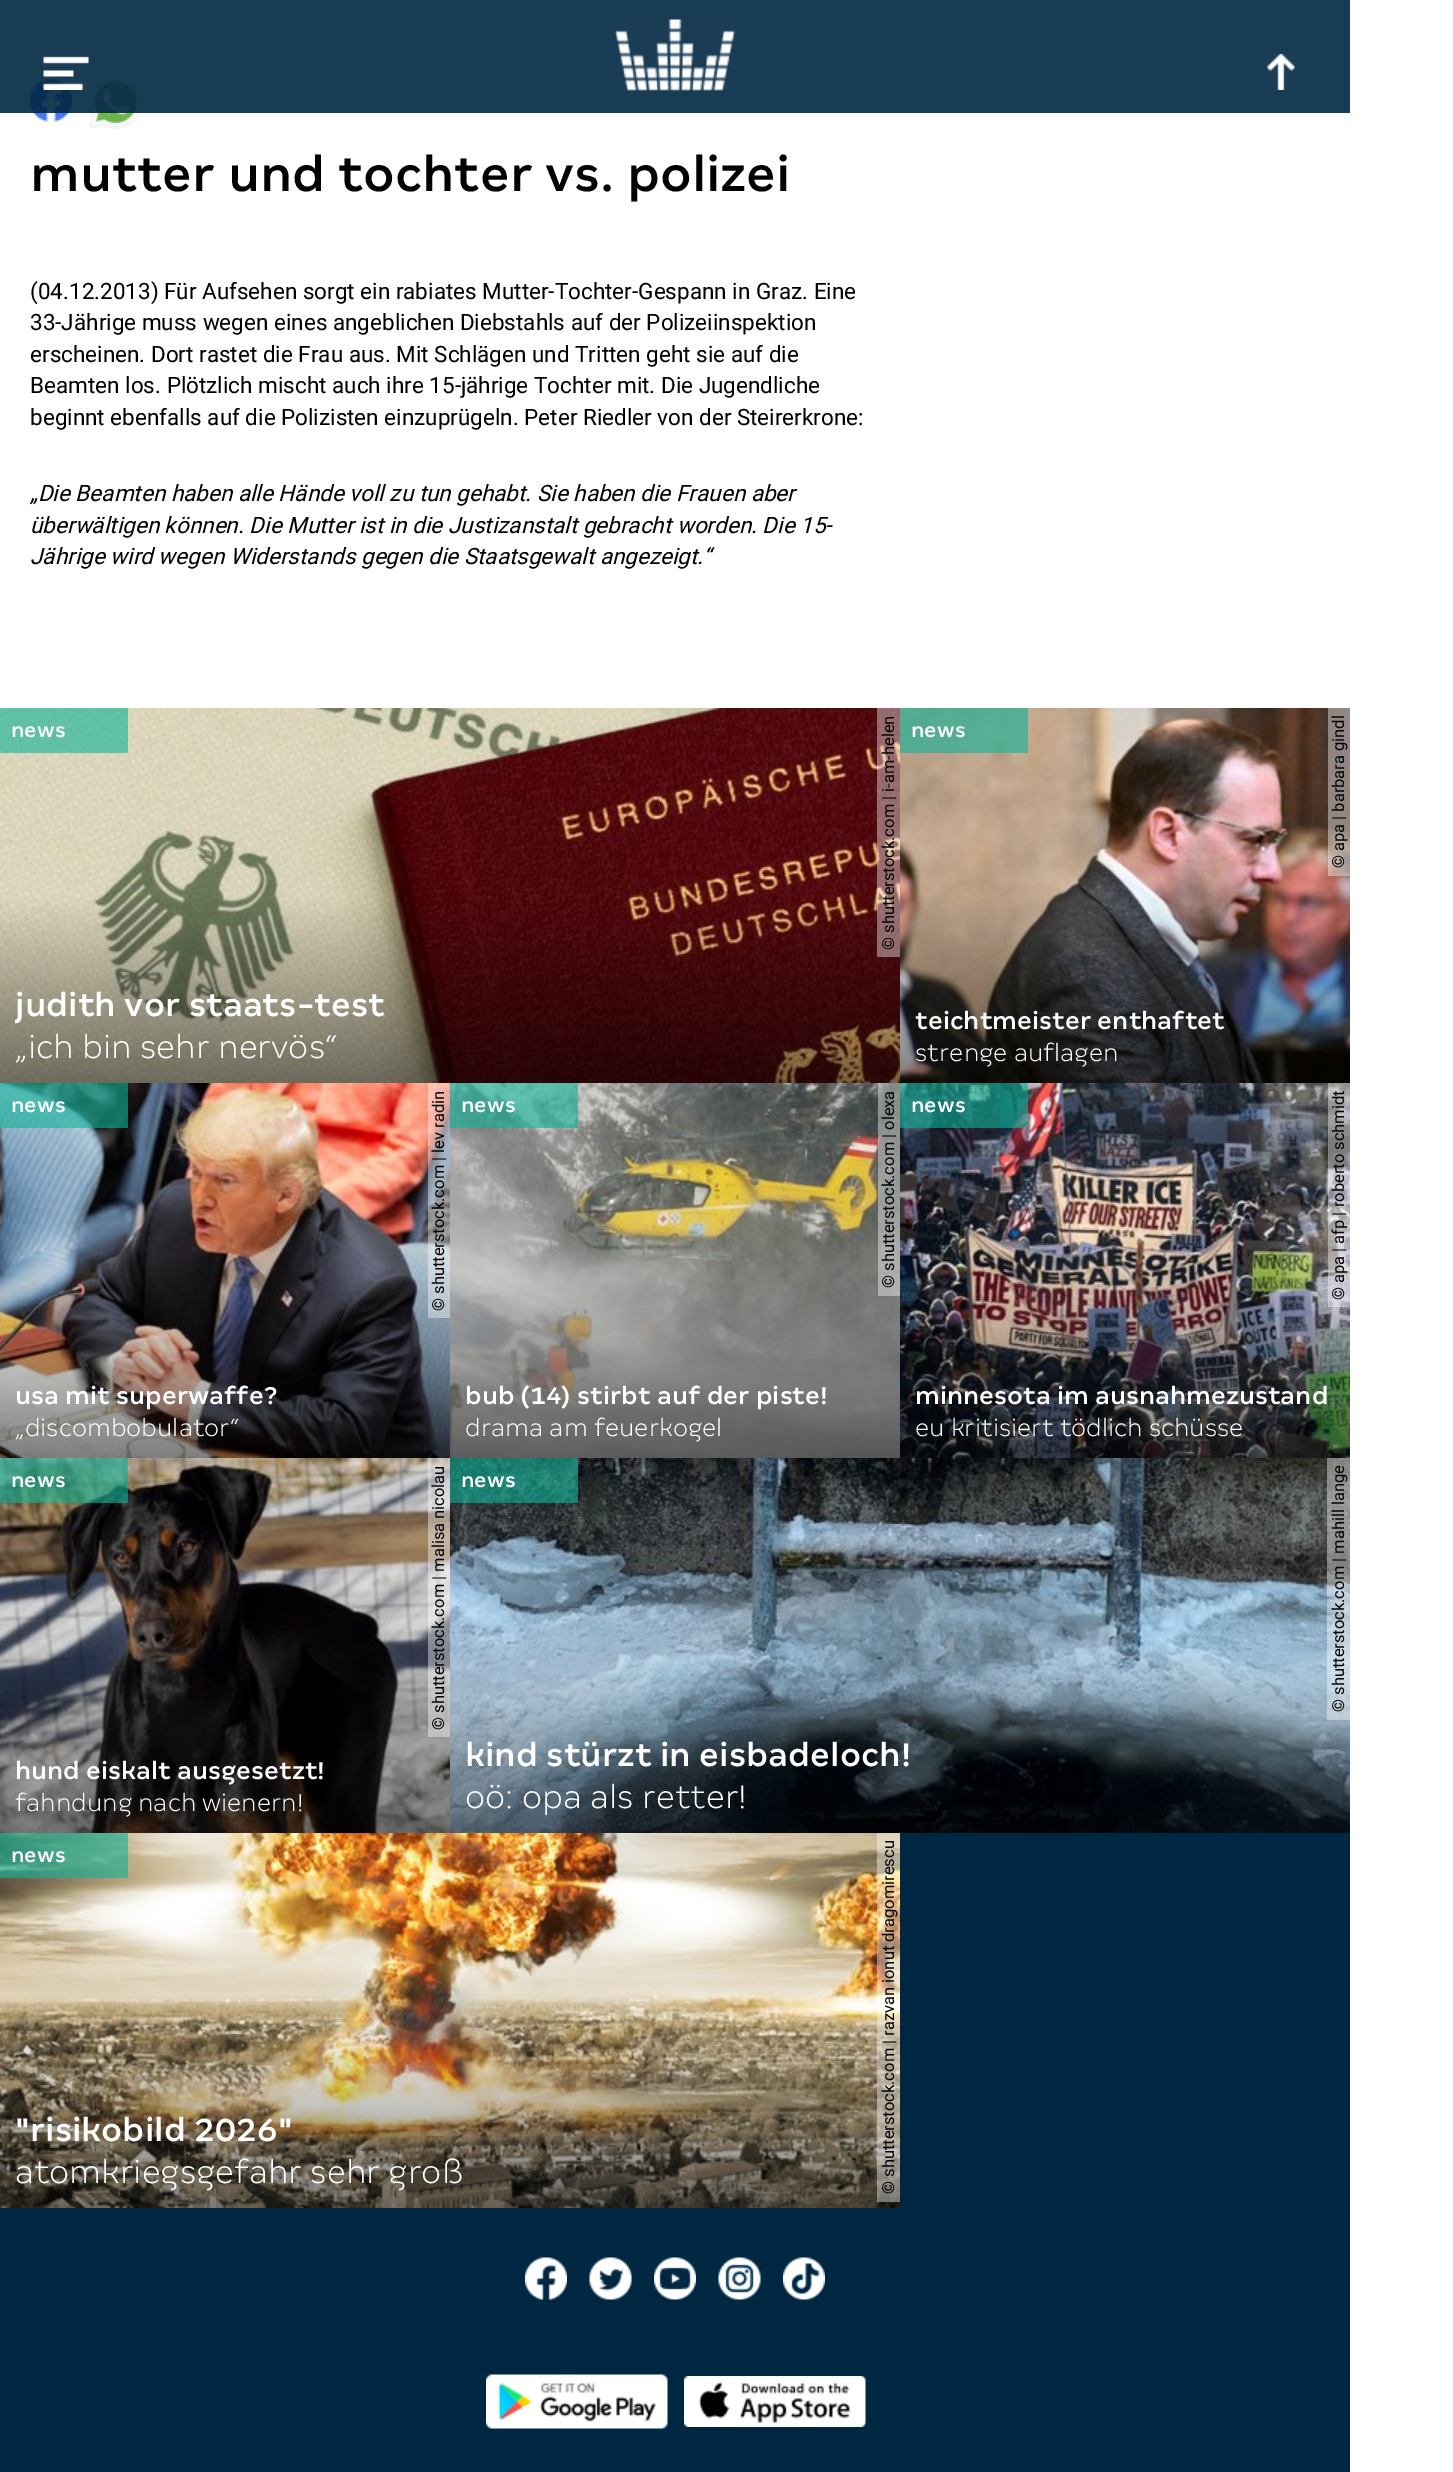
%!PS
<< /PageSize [1453 2472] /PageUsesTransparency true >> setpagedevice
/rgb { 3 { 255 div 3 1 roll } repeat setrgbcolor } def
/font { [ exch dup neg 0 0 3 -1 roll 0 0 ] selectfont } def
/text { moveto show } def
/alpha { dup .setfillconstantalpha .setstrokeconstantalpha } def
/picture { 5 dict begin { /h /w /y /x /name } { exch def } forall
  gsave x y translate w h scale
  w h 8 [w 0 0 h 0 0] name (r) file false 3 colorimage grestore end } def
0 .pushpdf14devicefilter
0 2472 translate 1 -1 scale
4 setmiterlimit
255 255 255 rgb
0 0 1453 2472 rectfill
(img_04.rgb) 30 79 42 43 picture
(img_05.rgb) 89 75 54 54 picture
0.9 alpha
0 39 66 rgb
0 0 1350 113 rectfill
1 alpha
(img_01.rgb) 43 56 46 34 picture
(img_02.rgb) 614 19 122 72 picture
(img_03.rgb) 1267 54 28 36 picture
900 1833 450 375 rectfill
(img_06.rgb) 0 708 900 375 picture
0.6 alpha
15 179 153 rgb
0 708 128 45 rectfill
0.4 alpha
255 255 255 rgb
877 708 23 249 rectfill
1 alpha
(img_07.rgb) 900 708 450 375 picture
0.6 alpha
15 179 153 rgb
900 708 128 45 rectfill
0.4 alpha
255 255 255 rgb
1328 708 22 168 rectfill
1 alpha
(img_08.rgb) 0 1083 450 375 picture
0.6 alpha
15 179 153 rgb
0 1083 128 45 rectfill
0.4 alpha
255 255 255 rgb
428 1083 22 235 rectfill
1 alpha
(img_09.rgb) 450 1083 450 375 picture
0.6 alpha
15 179 153 rgb
450 1083 128 45 rectfill
0.4 alpha
255 255 255 rgb
878 1083 22 213 rectfill
1 alpha
(img_10.rgb) 900 1083 450 375 picture
0.6 alpha
15 179 153 rgb
900 1083 128 45 rectfill
0.4 alpha
255 255 255 rgb
1328 1083 22 224 rectfill
1 alpha
(img_11.rgb) 0 1458 450 375 picture
0.6 alpha
15 179 153 rgb
0 1458 128 45 rectfill
0.4 alpha
255 255 255 rgb
428 1458 22 279 rectfill
1 alpha
(img_12.rgb) 450 1458 900 375 picture
0.6 alpha
15 179 153 rgb
450 1458 128 45 rectfill
0.4 alpha
255 255 255 rgb
1327 1458 23 262 rectfill
1 alpha
(img_13.rgb) 0 1833 900 375 picture
0.6 alpha
15 179 153 rgb
0 1833 128 45 rectfill
0.4 alpha
255 255 255 rgb
877 1833 23 369 rectfill
1 alpha
0 39 66 rgb
0 2208 1350 264 rectfill
(img_14.rgb) 525 2257 42 43 picture
(img_15.rgb) 589 2257 43 43 picture
(img_16.rgb) 654 2257 42 43 picture
(img_17.rgb) 718 2257 43 43 picture
(img_18.rgb) 783 2257 42 43 picture
(img_19.rgb) 486 2374 182 55 picture
(img_20.rgb) 684 2376 182 51 picture
/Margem-Medium 54 font
0 0 0 rgb
(mutter und tochter vs. polizei) 30 191 text
/Roboto-Regular 22.5 font
(\(04.12.2013\) Für Aufsehen sorgt ein rabiates Mutter-Tochter-Gespann in Graz. Eine) 30 299 text
(33-Jährige muss wegen eines angeblichen Diebstahls auf der Polizeiinspektion) 30 330 text
(erscheinen. Dort rastet die Frau aus. Mit Schlägen und Tritten geht sie auf die) 30 362 text
(Beamten los. Plötzlich mischt auch ihre 15-jährige Tochter mit. Die Jugendliche) 30 393 text
(beginnt ebenfalls auf die Polizisten einzuprügeln. Peter Riedler von der Steirerkrone:) 30 425 text
/Roboto-Italic 22.5 font
(„Die Beamten haben alle Hände voll zu tun gehabt. Sie haben die Frauen aber) 30 501 text
(überwältigen können. Die Mutter ist in die Justizanstalt gebracht worden. Die 15-) 30 533 text
(Jährige wird wegen Widerstands gegen die Staatsgewalt angezeigt.“) 30 564 text
/Margem-Medium 22.5 font
255 255 255 rgb
(news) 11 737 text
/Roboto-Regular 16.5 font
0 0 0 rgb
gsave 894 950 translate -90 rotate 0 0 moveto (© shutterstock.com | i-am-helen) show grestore
gsave
15 984 870 42 rectclip
/Margem-Medium 36 font
255 255 255 rgb
(judith vor staats-test) 15 1016 text
grestore
/Margem-Light 36 font
255 255 255 rgb
(„ich bin sehr nervös“) 15 1058 text
/Margem-Medium 22.5 font
(news) 911 737 text
/Roboto-Regular 16.5 font
0 0 0 rgb
gsave 1344 868 translate -90 rotate 0 0 moveto (© apa | barbara gindl) show grestore
/Margem-Medium 27 font
255 255 255 rgb
(teichtmeister enthaftet) 915 1029 text
/Margem-Light 27 font
(strenge auflagen) 915 1061 text
/Margem-Medium 22.5 font
(news) 11 1112 text
/Roboto-Regular 16.5 font
0 0 0 rgb
gsave 444 1311 translate -90 rotate 0 0 moveto (© shutterstock.com | lev radin) show grestore
/Margem-Medium 27 font
255 255 255 rgb
(usa mit superwaffe?) 15 1404 text
/Margem-Light 27 font
(„discombobulator“) 15 1436 text
/Margem-Medium 22.5 font
(news) 461 1112 text
/Roboto-Regular 16.5 font
0 0 0 rgb
gsave 894 1288 translate -90 rotate 0 0 moveto (© shutterstock.com | olexa) show grestore
/Margem-Medium 27 font
255 255 255 rgb
(bub \(14\) stirbt auf der piste!) 465 1404 text
/Margem-Light 27 font
(drama am feuerkogel) 465 1436 text
/Margem-Medium 22.5 font
(news) 911 1112 text
/Roboto-Regular 16.5 font
0 0 0 rgb
gsave 1344 1300 translate -90 rotate 0 0 moveto (© apa | afp | roberto schmidt) show grestore
/Margem-Medium 27 font
255 255 255 rgb
(minnesota im ausnahmezustand) 915 1404 text
/Margem-Light 27 font
(eu kritisiert tödlich schüsse) 915 1436 text
/Margem-Medium 22.5 font
(news) 11 1487 text
/Roboto-Regular 16.5 font
0 0 0 rgb
gsave 444 1730 translate -90 rotate 0 0 moveto (© shutterstock.com | malisa nicolau) show grestore
/Margem-Medium 27 font
255 255 255 rgb
(hund eiskalt ausgesetzt!) 15 1779 text
/Margem-Light 27 font
(fahndung nach wienern!) 15 1811 text
/Margem-Medium 22.5 font
(news) 461 1487 text
/Roboto-Regular 16.5 font
0 0 0 rgb
gsave 1344 1712 translate -90 rotate 0 0 moveto (© shutterstock.com | mahill lange) show grestore
/Margem-Medium 36 font
255 255 255 rgb
(kind stürzt in eisbadeloch!) 465 1766 text
/Margem-Light 36 font
(oö: opa als retter!) 465 1808 text
/Margem-Medium 22.5 font
(news) 11 1862 text
/Roboto-Regular 16.5 font
0 0 0 rgb
gsave 894 2194 translate -90 rotate 0 0 moveto (© shutterstock.com | razvan ionut dragomirescu) show grestore
/Margem-Medium 36 font
255 255 255 rgb
("risikobild 2026") 15 2141 text
/Margem-Light 36 font
(atomkriegsgefahr sehr groß) 15 2183 text
.poppdf14devicefilter showpage
